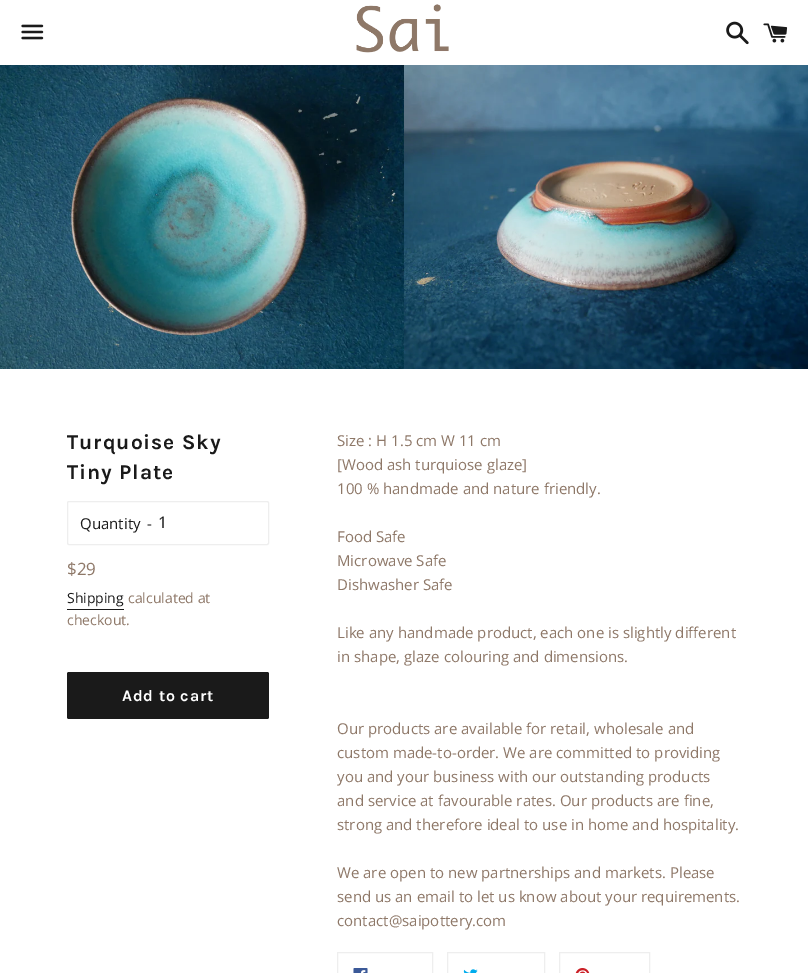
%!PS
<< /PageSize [808 973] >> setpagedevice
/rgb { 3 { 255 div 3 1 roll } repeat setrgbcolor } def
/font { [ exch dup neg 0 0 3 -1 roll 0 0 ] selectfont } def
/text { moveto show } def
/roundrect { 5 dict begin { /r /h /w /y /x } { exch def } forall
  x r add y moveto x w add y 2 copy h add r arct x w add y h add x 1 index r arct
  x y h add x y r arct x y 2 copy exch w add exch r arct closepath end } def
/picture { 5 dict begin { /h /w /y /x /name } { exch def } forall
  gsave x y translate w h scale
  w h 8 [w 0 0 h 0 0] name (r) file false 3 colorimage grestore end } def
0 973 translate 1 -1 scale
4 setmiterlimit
255 255 255 rgb
0 0 808 973 rectfill
(img_01.rgb) 21 24 23 16 picture
(img_02.rgb) 356 4 93 49 picture
(img_03.rgb) 726 21 23 24 picture
(img_04.rgb) 763 23 25 20 picture
(img_05.rgb) 0 65 404 304 picture
(img_06.rgb) 404 65 404 304 picture
238 238 238 rgb
67.5 501.5 201 43 1.5 roundrect stroke
26 26 26 rgb
67 609 57 1 rectfill
67 672 202 47 2 roundrect fill
238 238 238 rgb
337.5 952.5 95 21 rectstroke
(img_07.rgb) 353 968 15 5 picture
447.5 952.5 97 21 rectstroke
(img_08.rgb) 463 969 15 4 picture
559.5 952.5 90 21 rectstroke
(img_09.rgb) 575 968 15 5 picture
/Karla-Bold 21 font
26 26 26 rgb
67 449 moveto 1 0 (Turquoise Sky) ashow
67 479 moveto 1 0 (Tiny Plate) ashow
/OpenSans-Regular 15 font
(Quantity) 80 529 text
(-) 147 529 text
/OpenSans-Regular 16 font
(1) 158 528 text
/OpenSans-Regular 17 font
142 120 104 rgb
($29) 67 575 text
/OpenSans-Regular 14 font
26 26 26 rgb
(Shipping) 67 603 text
142 120 104 rgb
(calculated at) 128 603 text
(checkout.) 67 625 text
/Karla-Bold 16 font
255 255 255 rgb
122 701 moveto 0.75 0 (Add to cart) ashow
/OpenSans-Regular 15 font
142 120 104 rgb
(Size : H 1.5 cm W 11 cm) 337 446 text
([Wood ash turquiose glaze]) 337 470 text
(100 % handmade and nature friendly.) 337 494 text
(Food Safe) 337 542 text
(Microwave Safe) 337 566 text
(Dishwasher Safe) 337 590 text
(Like any handmade product, each one is slightly different) 337 638 text
(in shape, glaze colouring and dimensions.) 337 662 text
(Our products are available for retail, wholesale and) 337 734 text
(custom made-to-order. We are committed to providing) 337 758 text
(you and your business with our outstanding products) 337 782 text
(and service at favourable rates. Our products are fine,) 337 806 text
(strong and therefore ideal to use in home and hospitality.) 337 830 text
(We are open to new partnerships and markets. Please) 337 878 text
(send us an email to let us know about your requirements.) 337 902 text
(contact@saipottery.com) 337 926 text
showpage
